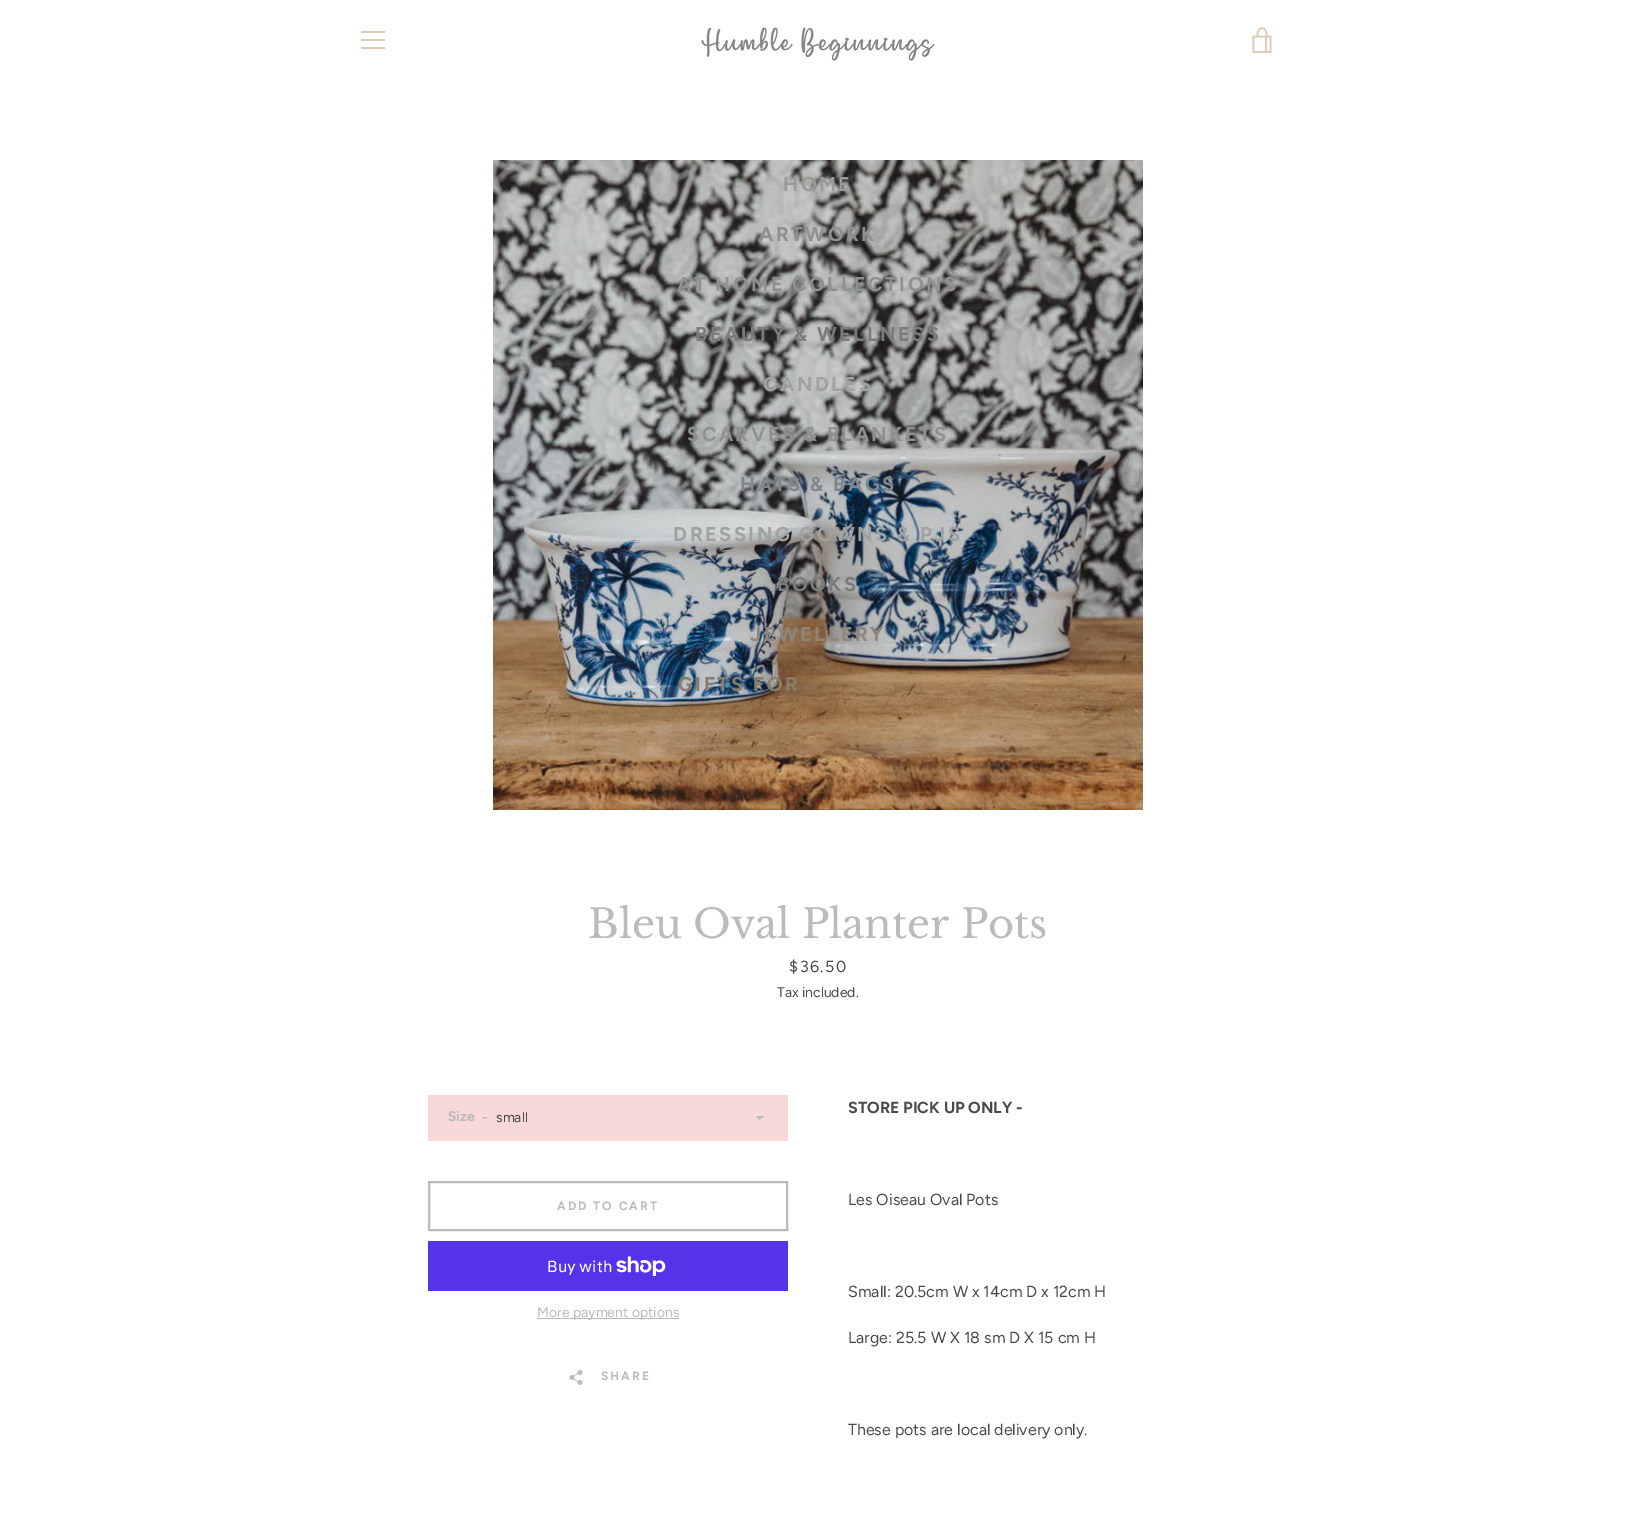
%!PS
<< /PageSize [1636 1536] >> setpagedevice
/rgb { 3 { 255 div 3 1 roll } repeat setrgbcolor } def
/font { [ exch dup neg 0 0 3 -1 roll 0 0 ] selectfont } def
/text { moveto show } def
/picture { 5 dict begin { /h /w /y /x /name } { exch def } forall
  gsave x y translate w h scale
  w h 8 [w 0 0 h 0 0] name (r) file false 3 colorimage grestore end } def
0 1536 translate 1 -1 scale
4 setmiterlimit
255 255 255 rgb
0 0 1636 1536 rectfill
(img_01.rgb) 701 27 234 34 picture
(img_02.rgb) 1252 27 20 26 picture
225 201 180 rgb
361 31 24 2 rectfill
361 39 24 2 rectfill
361 47 24 2 rectfill
(img_03.rgb) 493 160 650 650 picture
248 217 215 rgb
428 1095 360 46 rectfill
gsave 760 1116 moveto 4 0 rlineto 0 3 rlineto -4 0 rlineto closepath clip newpath
<< /ShadingType 2 /ColorSpace /DeviceRGB /Coords [760 1116 764 1120] /Extend [true true] /Function << /FunctionType 3 /Domain [0 1] /Functions [<< /FunctionType 2 /Domain [0 1] /C0 [0.741 0.729 0.729] /C1 [0.741 0.729 0.729] /N 1 >> << /FunctionType 2 /Domain [0 1] /C0 [0.973 0.851 0.843] /C1 [0.973 0.851 0.843] /N 1 >>] /Bounds [0.5] /Encode [0 1 0 1] >> >> shfill grestore
gsave 756 1116 moveto 4 0 rlineto 0 4 rlineto -4 0 rlineto closepath clip newpath
<< /ShadingType 2 /ColorSpace /DeviceRGB /Coords [756 1120 760 1116] /Extend [true true] /Function << /FunctionType 3 /Domain [0 1] /Functions [<< /FunctionType 2 /Domain [0 1] /C0 [0.973 0.851 0.843] /C1 [0.973 0.851 0.843] /N 1 >> << /FunctionType 2 /Domain [0 1] /C0 [0.741 0.729 0.729] /C1 [0.741 0.729 0.729] /N 1 >>] /Bounds [0.5] /Encode [0 1 0 1] >> >> shfill grestore
189 186 186 rgb
2 setlinewidth
429 1182 358 48 rectstroke
84 51 235 rgb
428 1241 360 50 rectfill
(img_04.rgb) 616 1256 50 20 picture
189 186 186 rgb
537 1318 142 1 rectfill
(img_05.rgb) 569 1370 14 15 picture
/Figtree-Bold 20 font
153 154 151 rgb
783 191 moveto 2.5 0 (HOME) ashow
144 144 143 rgb
759 241 moveto 2.5 0 (ARTWORK) ashow
677 291 moveto 2.5 0 (AT HOME COLLECTIONS) ashow
122 123 122 rgb
695 341 moveto 2.5 0 (BEAUTY & WELLNESS) ashow
160 162 162 rgb
763 391 moveto 2.5 0 (CANDLES) ashow
144 144 143 rgb
687 441 moveto 2.5 0 (SCARVES & BLANKETS) ashow
126 134 142 rgb
740 491 moveto 2.5 0 (HATS & BAGS) ashow
160 162 162 rgb
673 541 moveto 2.5 0 (DRESSING GOWNS & PJS) ashow
122 123 122 rgb
777 591 moveto 2.5 0 (BOOKS) ashow
144 133 123 rgb
750 641 moveto 2.5 0 (JEWELLERY) ashow
140 125 107 rgb
678 691 moveto 2.5 0 (GIFTS FOR) ashow
/LibreBaskerville-Regular 40 font
189 186 186 rgb
(Bleu Oval Planter Pots) 588 938 text
/Figtree-Regular 16 font
74 74 74 rgb
789 972 moveto 1.5 0 ($36.50) ashow
/Figtree-Regular 14 font
(Tax included.) 777 997 text
/Figtree-Bold 14 font
189 186 186 rgb
(Size) 448 1121 text
(-) 482 1122 text
/Figtree-Regular 14 font
74 74 74 rgb
(small) 496 1122 text
/Figtree-Bold 12 font
189 186 186 rgb
557 1210 moveto 2 0 (ADD TO CART) ashow
/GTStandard-Regular 16 font
255 255 255 rgb
(Buy with) 547 1272 text
/Figtree-Regular 14 font
189 186 186 rgb
(More payment options) 537 1317 text
/Figtree-Bold 12 font
601 1380 moveto 2 0 (SHARE) ashow
/Figtree-Bold 16 font
74 74 74 rgb
(STORE PICK UP ONLY -) 848 1113 text
/Figtree-Regular 16 font
(Les Oiseau Oval Pots) 848 1205 text
(Small: 20.5cm W x 14cm D x 12cm H) 848 1297 text
(Large: 25.5 W X 18 sm D X 15 cm H) 848 1343 text
(These pots are local delivery only.) 848 1435 text
showpage
